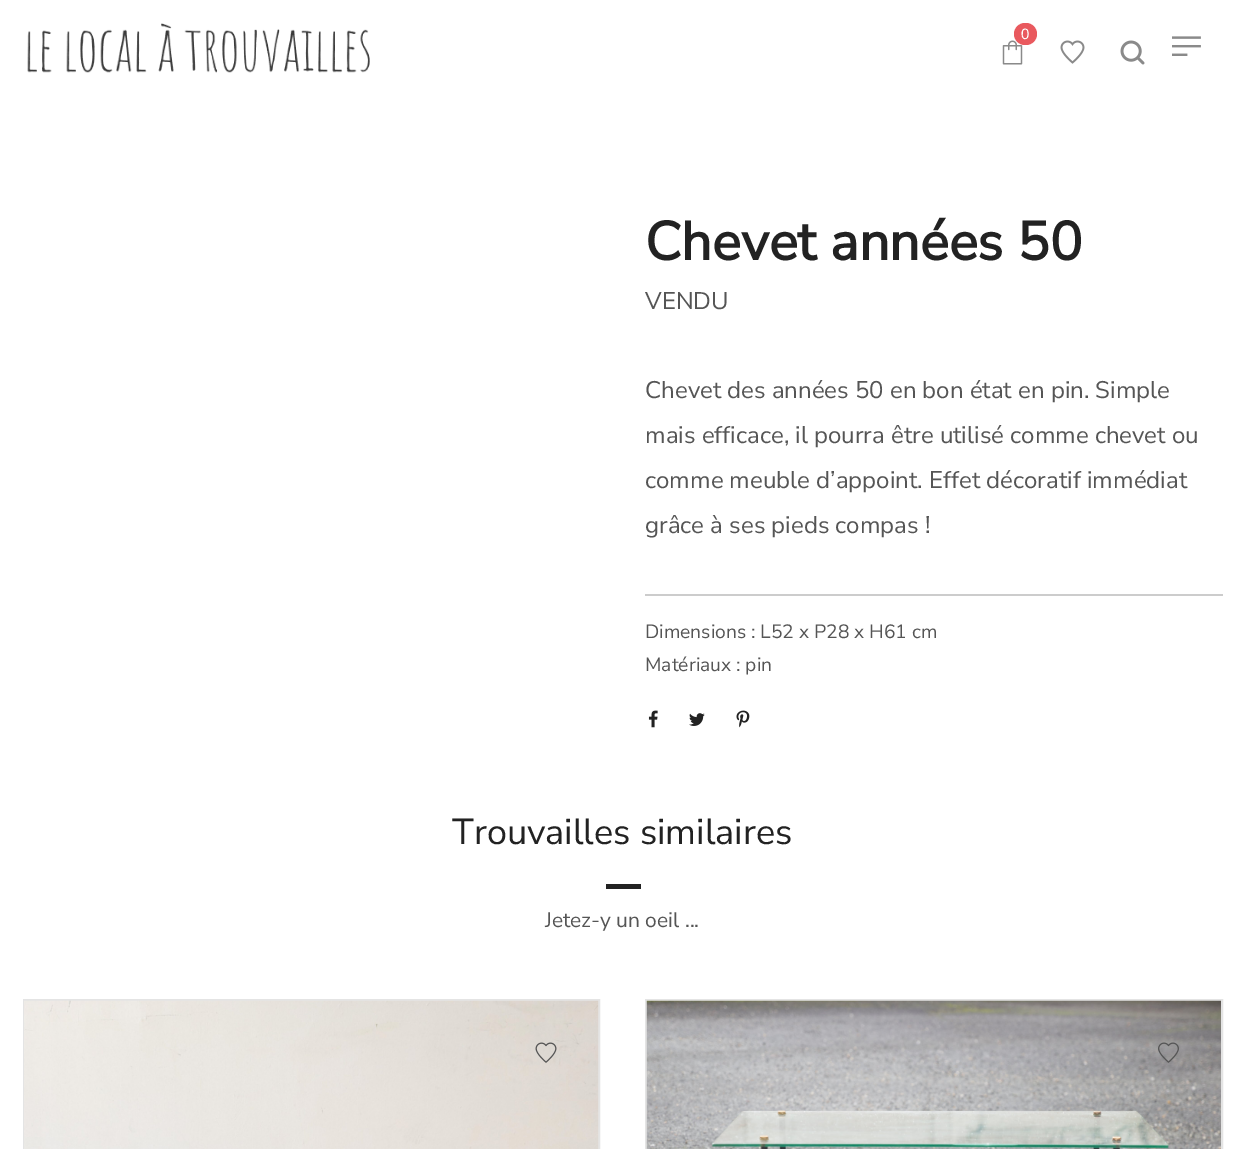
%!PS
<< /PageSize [1245 1149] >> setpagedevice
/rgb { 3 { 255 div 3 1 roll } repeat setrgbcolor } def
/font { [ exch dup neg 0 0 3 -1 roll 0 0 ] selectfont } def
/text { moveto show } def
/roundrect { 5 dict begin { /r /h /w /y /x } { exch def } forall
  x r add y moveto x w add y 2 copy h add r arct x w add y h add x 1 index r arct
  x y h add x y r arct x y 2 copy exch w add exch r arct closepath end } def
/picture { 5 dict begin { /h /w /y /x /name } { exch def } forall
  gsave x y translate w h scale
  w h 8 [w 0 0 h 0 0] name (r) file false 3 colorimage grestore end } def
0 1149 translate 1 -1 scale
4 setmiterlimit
255 255 255 rgb
0 0 1245 1149 rectfill
(img_01.rgb) 27 23 343 50 picture
(img_02.rgb) 1002 40 21 25 picture
233 89 94 rgb
1014 23 23 22 11 roundrect fill
(img_03.rgb) 1060 40 25 24 picture
(img_04.rgb) 1120 40 25 25 picture
(img_05.rgb) 1172 36 29 20 picture
204 204 204 rgb
645 594 578 2 rectfill
(img_06.rgb) 648 710 10 18 picture
(img_07.rgb) 689 713 16 13 picture
(img_08.rgb) 736 710 14 18 picture
34 34 34 rgb
606 884 35 5 rectfill
228 228 228 rgb
2 setlinewidth
24 1000 575 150 rectstroke
(img_09.rgb) 24 1000 575 149 picture
(img_10.rgb) 535 1042 22 21 picture
646 1000 576 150 rectstroke
(img_11.rgb) 646 1000 575 149 picture
(img_12.rgb) 1158 1042 21 21 picture
/LiberationSans-Regular 15 font
255 255 255 rgb
(0) 1021 39 text
/NunitoSans-Bold 54 font
34 34 34 rgb
(Chevet années 50) 645 260 text
/NunitoSans-ExtraLight 24 font
85 85 85 rgb
(VENDU) 645 309 text
(Chevet des années 50 en bon état en pin. Simple) 645 398 text
(mais efficace, il pourra être utilisé comme chevet ou) 645 443 text
(comme meuble d’appoint. Effet décoratif immédiat) 645 488 text
(grâce à ses pieds compas !) 645 533 text
/NunitoSans-ExtraLight 19.25 font
(Dimensions : L52 x P28 x H61 cm) 645 638 text
(Matériaux : pin) 645 671 text
/NunitoSans-ExtraLight 36 font
34 34 34 rgb
(Trouvailles similaires) 452 844 text
/NunitoSans-ExtraLight 21 font
85 85 85 rgb
(Jetez-y un oeil ...) 545 927 text
showpage
